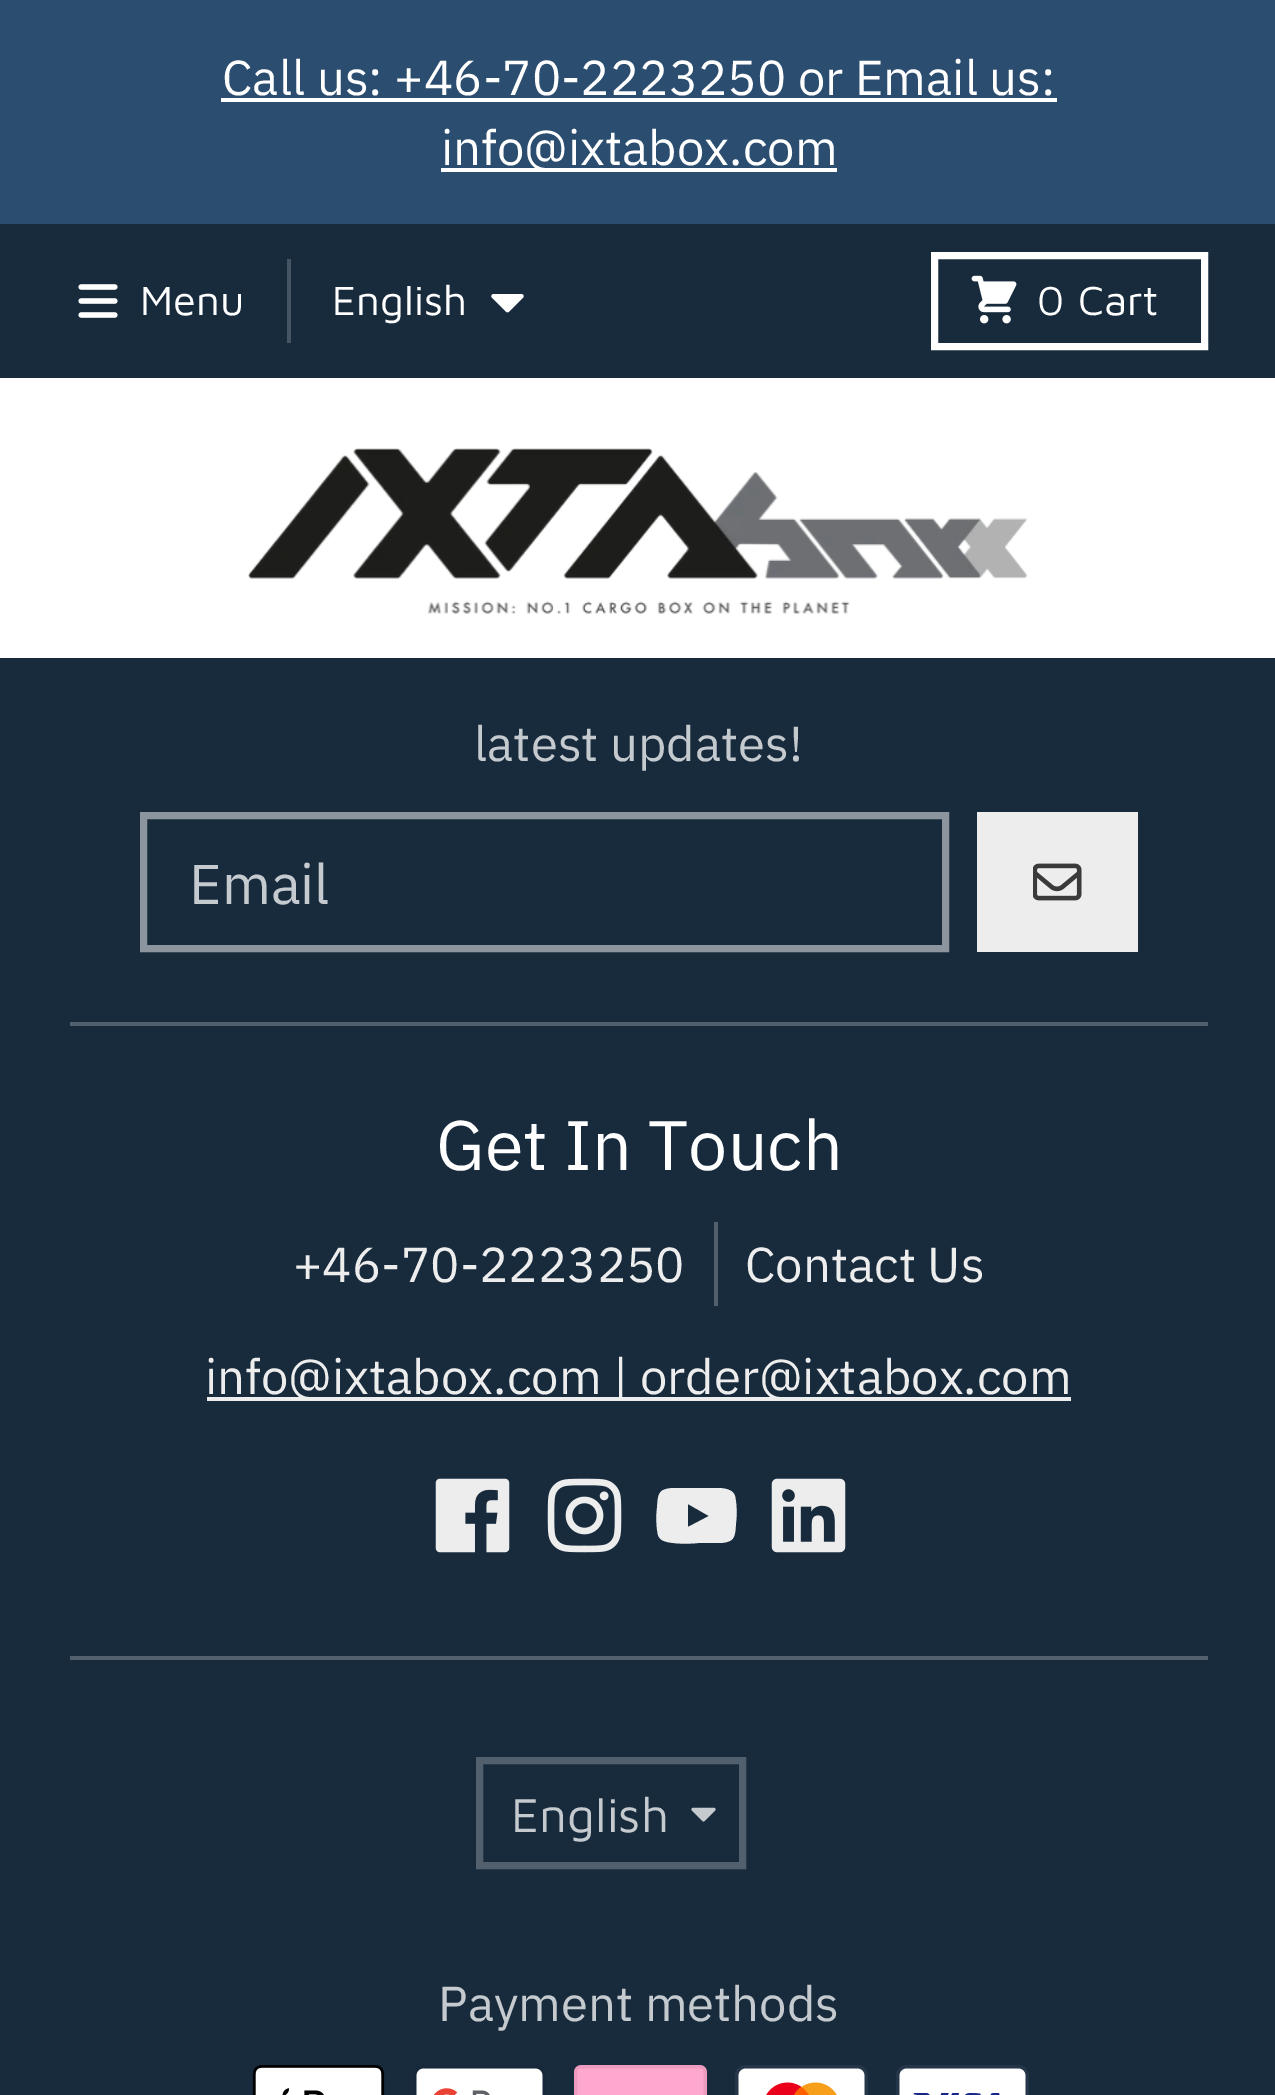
%!PS
<< /PageSize [1275 2095] >> setpagedevice
/rgb { 3 { 255 div 3 1 roll } repeat setrgbcolor } def
/font { [ exch dup neg 0 0 3 -1 roll 0 0 ] selectfont } def
/text { moveto show } def
/picture { 5 dict begin { /h /w /y /x /name } { exch def } forall
  gsave x y translate w h scale
  w h 8 [w 0 0 h 0 0] name (r) file false 3 colorimage grestore end } def
0 2095 translate 1 -1 scale
4 setmiterlimit
24 43 61 rgb
0 0 1275 2095 rectfill
43 78 112 rgb
0 0 1275 224 rectfill
255 255 255 rgb
221 98 836 4 rectfill
441 168 396 4 rectfill
(img_01.rgb) 78 284 40 34 picture
70 85 100 rgb
287 259 4 84 rectfill
(img_02.rgb) 491 294 33 19 picture
255 255 255 rgb
7 setlinewidth
934.5 255.5 270 91 rectstroke
(img_03.rgb) 971 275 46 49 picture
0 378 1275 280 rectfill
(img_04.rgb) 248 448 779 166 picture
140 149 158 rgb
143.5 815.5 802 133 rectstroke
237 237 237 rgb
977 812 161 140 rectfill
(img_05.rgb) 1033 863 49 38 picture
82 96 110 rgb
70 1022 1138 4 rectfill
714 1222 4 84 rectfill
237 237 237 rgb
207 1397 864 4 rectfill
(img_06.rgb) 435 1478 75 75 picture
(img_07.rgb) 547 1478 75 75 picture
735 1496 moveto -1 -3 -3 -5 -6 -6 rcurveto -4 -2 -10 -2 -14 -2 rcurveto -22 0 rlineto -20 0 rlineto -15 1 -15 6 -16 20 rcurveto -1 9 -1 18 1 27 rcurveto 1 3 3 5 6 6 rcurveto 7 3 25 3 34 2 rcurveto 22 0 rlineto 15 -1 15 -6 16 -20 rcurveto 1 -9 1 -18 -1 -27 rcurveto closepath 688 1527 moveto 0 -23 rlineto 21 12 rlineto closepath fill
(img_08.rgb) 771 1478 75 75 picture
82 96 110 rgb
70 1656 1138 4 rectfill
479.5 1760.5 263 105 rectstroke
(img_09.rgb) 691 1807 25 15 picture
(img_10.rgb) 252 2065 133 30 picture
(img_11.rgb) 413 2065 133 30 picture
(img_12.rgb) 574 2065 133 30 picture
(img_13.rgb) 735 2065 133 30 picture
(img_14.rgb) 896 2065 133 30 picture
/IBMPlexSans-Regular 49 font
255 255 255 rgb
(Call us: +46-70-2223250 or Email us:) 222 95 text
(info@ixtabox.com) 441 165 text
/MavenPro-Regular 42 font
(Menu) 140 315 text
(English) 332 315 text
(0) 1037 315 text
(Cart) 1078 315 text
/IBMPlexSans-Regular 49 font
197 202 207 rgb
(latest updates!) 474 761 text
/IBMPlexSans-Regular 56 font
(Email) 189 904 text
/IBMPlexSans-Regular 70 font
255 255 255 rgb
(Get In Touch) 436 1170 text
/IBMPlexSans-Regular 49 font
237 237 237 rgb
(+46-70-2223250) 293 1282 text
(Contact Us) 745 1282 text
(info@ixtabox.com | order@ixtabox.com) 205 1394 text
/MavenPro-Regular 49 font
197 202 207 rgb
(English) 511 1832 text
/IBMPlexSans-Regular 49 font
(Payment methods) 438 2021 text
showpage
